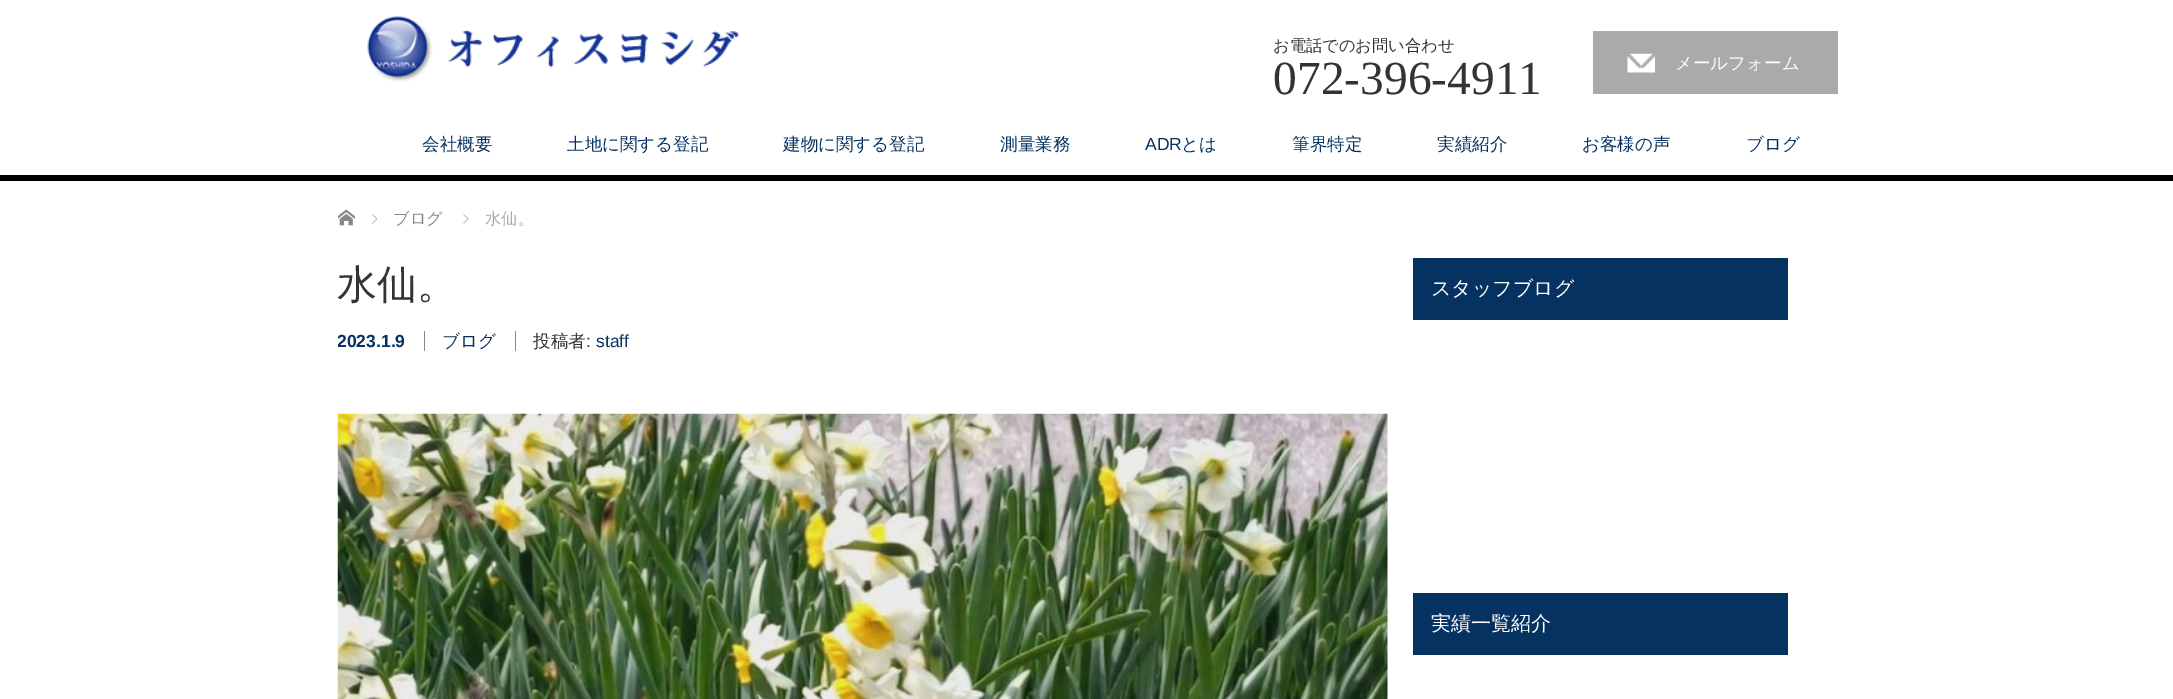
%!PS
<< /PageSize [2173 699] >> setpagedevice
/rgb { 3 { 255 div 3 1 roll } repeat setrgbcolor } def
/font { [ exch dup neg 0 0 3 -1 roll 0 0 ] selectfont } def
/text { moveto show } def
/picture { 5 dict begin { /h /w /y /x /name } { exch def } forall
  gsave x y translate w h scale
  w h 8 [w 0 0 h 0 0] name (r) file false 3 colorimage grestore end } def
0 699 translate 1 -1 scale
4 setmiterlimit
255 255 255 rgb
0 0 2173 699 rectfill
0 0 0 rgb
0 175 2173 6 rectfill
(img_01.rgb) 367 16 372 66 picture
170 170 170 rgb
1593 31 245 63 rectfill
(img_02.rgb) 1627 53 28 20 picture
(img_03.rgb) 338 209 17 17 picture
(img_04.rgb) 372 214 6 10 picture
(img_05.rgb) 463 214 6 10 picture
136 136 136 rgb
424 331 1 20 rectfill
515 331 1 20 rectfill
(img_06.rgb) 337 413 1051 286 picture
6 50 97 rgb
1413 258 375 62 rectfill
1413 593 375 62 rectfill
/WenQuanYiZenHei-Medium 16.25 font
51 51 51 rgb
(お電話でのお問い合わせ) 1273 51 text
/LiberationSerif-Regular 47.5 font
(072-396-4911) 1273 94 text
/WenQuanYiZenHei-Medium 17.5 font
255 255 255 rgb
(メールフォーム) 1675 69 text
6 50 97 rgb
(会社概要) 422 150 text
(土地に関する登記) 567 150 text
(建物に関する登記) 783 150 text
(測量業務) 1000 150 text
/LiberationSans-Regular 17.5 font
(ADR) 1145 150 text
/WenQuanYiZenHei-Medium 17.5 font
(とは) 1181 150 text
(筆界特定) 1292 150 text
(実績紹介) 1437 150 text
(お客様の声) 1582 150 text
(ブログ) 1746 150 text
/WenQuanYiZenHei-Medium 16.25 font
136 136 136 rgb
(ブログ) 393 224 text
170 170 170 rgb
(水仙。) 485 224 text
/WenQuanYiZenHei-Medium 40 font
51 51 51 rgb
(水仙。) 337 298 text
gsave
338 181 1500 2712 rectclip
/LiberationSans-Bold 17.5 font
6 50 97 rgb
(2023.1.9) 337 347 text
grestore
/WenQuanYiZenHei-Medium 17.5 font
6 50 97 rgb
(ブログ) 442 347 text
51 51 51 rgb
(投稿者) 533 347 text
/LiberationSans-Regular 17.5 font
(:) 586 347 text
6 50 97 rgb
(staff) 596 347 text
/WenQuanYiZenHei-Medium 20 font
255 255 255 rgb
(スタッフブログ) 1431 295 text
(実績一覧紹介) 1431 630 text
showpage
